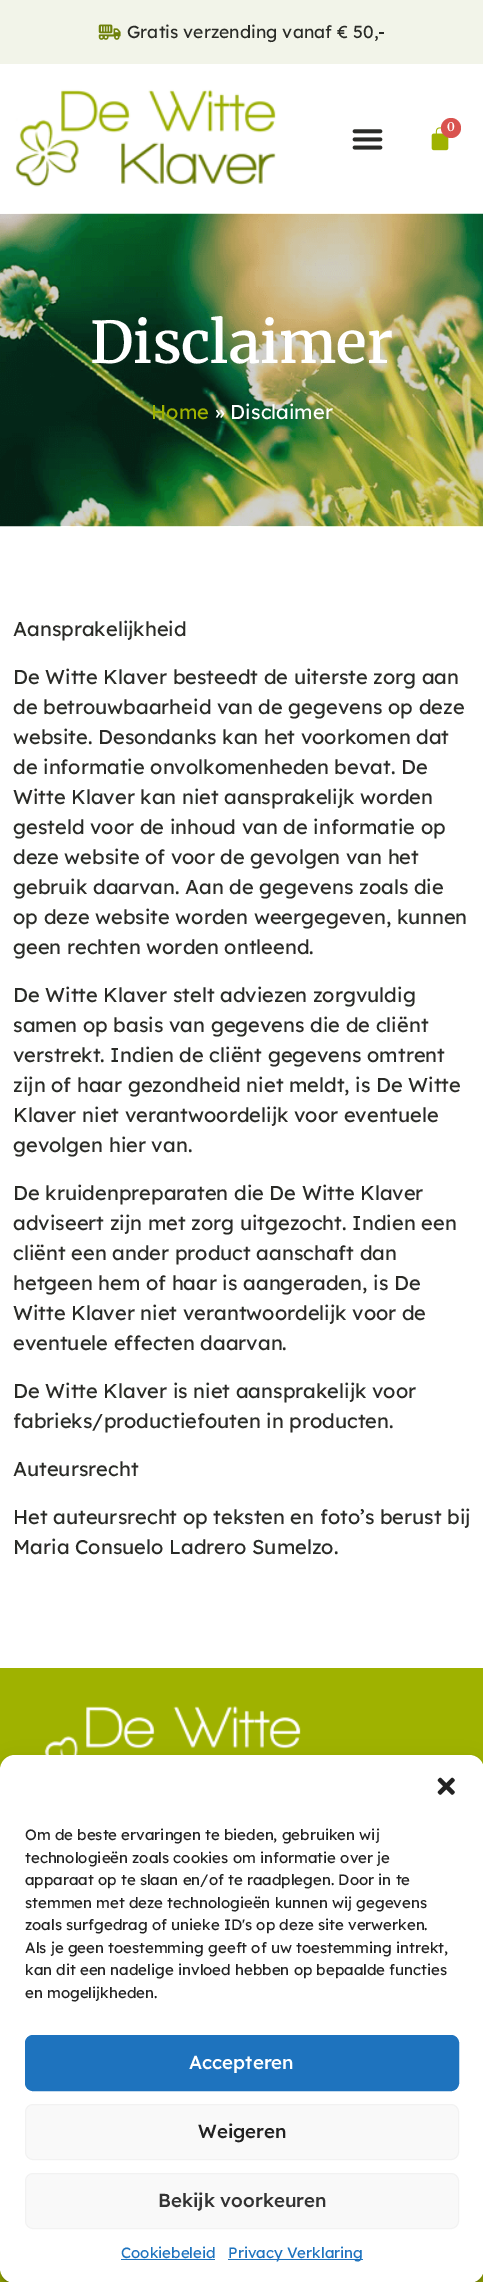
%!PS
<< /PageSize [483 2282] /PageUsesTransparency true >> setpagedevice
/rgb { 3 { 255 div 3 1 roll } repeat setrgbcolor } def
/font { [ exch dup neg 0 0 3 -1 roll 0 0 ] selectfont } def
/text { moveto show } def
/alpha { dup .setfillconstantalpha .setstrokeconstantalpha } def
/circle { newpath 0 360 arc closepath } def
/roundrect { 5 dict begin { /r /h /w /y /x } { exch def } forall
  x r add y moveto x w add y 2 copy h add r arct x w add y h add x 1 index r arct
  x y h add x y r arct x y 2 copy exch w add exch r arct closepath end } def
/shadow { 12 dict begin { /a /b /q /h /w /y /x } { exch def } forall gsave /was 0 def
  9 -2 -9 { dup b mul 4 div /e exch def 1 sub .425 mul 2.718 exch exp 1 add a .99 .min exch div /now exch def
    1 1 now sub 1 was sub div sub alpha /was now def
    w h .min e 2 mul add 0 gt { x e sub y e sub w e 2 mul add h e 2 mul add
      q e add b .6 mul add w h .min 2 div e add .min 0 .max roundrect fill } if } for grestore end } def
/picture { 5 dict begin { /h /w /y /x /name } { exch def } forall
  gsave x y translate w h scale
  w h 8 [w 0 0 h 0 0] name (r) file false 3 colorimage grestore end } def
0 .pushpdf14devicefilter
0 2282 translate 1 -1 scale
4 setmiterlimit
255 255 255 rgb
0 0 483 2282 rectfill
242 244 233 rgb
0 0 483 64 rectfill
(img_01.rgb) 98 24 23 16 picture
(img_02.rgb) 15 89 261 98 picture
(img_03.rgb) 431 127 18 24 picture
217 83 79 rgb
451 128 10 circle fill
(img_04.rgb) 352 129 31 21 picture
(img_05.rgb) 0 213 483 314 picture
159 178 0 rgb
0 1668 483 614 rectfill
(img_06.rgb) 44 1706 257 49 picture
0 0 0 rgb
0 1763 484 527 15 4 0.23 shadow
0 1768 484 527 15 12.5 0.19 shadow
255 255 255 rgb
0 1755 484 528 15 roundrect fill
(img_07.rgb) 437 1777 18 18 picture
30 115 190 rgb
25.5 2035.5 433 55 7.5 roundrect gsave fill grestore
stroke
249 249 249 rgb
25.5 2104.5 433 55 7.5 roundrect gsave fill grestore
242 242 242 rgb
stroke
249 249 249 rgb
25.5 2173.5 433 55 7.5 roundrect gsave fill grestore
242 242 242 rgb
stroke
30 115 190 rgb
121 2259 94 1 rectfill
228 2259 135 1 rectfill
/Lexend-Regular 17.5 font
42 43 39 rgb
(Gratis verzending vanaf € 50,-) 127 38 text
/Merriweather-SemiBold 12 font
255 255 255 rgb
(0) 447 131 text
/Merriweather-SemiBold 57.5 font
(Disclaimer) 90 363 text
/Lexend-Regular 20 font
159 178 0 rgb
(Home) 151 419 text
255 255 255 rgb
(» Disclaimer) 215 419 text
42 43 39 rgb
(Aansprakelijkheid) 13 636 text
(De Witte Klaver besteedt de uiterste zorg aan) 13 684 text
(de betrouwbaarheid van de gegevens op deze) 13 714 text
(website. Desondanks kan het voorkomen dat) 13 744 text
(de informatie onvolkomenheden bevat. De) 13 774 text
(Witte Klaver kan niet aansprakelijk worden) 13 804 text
(gesteld voor de inhoud van de informatie op) 13 834 text
(deze website of voor de gevolgen van het) 13 864 text
(gebruik daarvan. Aan de gegevens zoals die) 13 894 text
(op deze website worden weergegeven, kunnen) 13 924 text
(geen rechten worden ontleend.) 13 954 text
(De Witte Klaver stelt adviezen zorgvuldig) 13 1002 text
(samen op basis van gegevens die de cliënt) 13 1032 text
(verstrekt. Indien de cliënt gegevens omtrent) 13 1062 text
(zijn of haar gezondheid niet meldt, is De Witte) 13 1092 text
(Klaver niet verantwoordelijk voor eventuele) 13 1122 text
(gevolgen hier van.) 13 1152 text
(De kruidenpreparaten die De Witte Klaver) 13 1200 text
(adviseert zijn met zorg uitgezocht. Indien een) 13 1230 text
(cliënt een ander product aanschaft dan) 13 1260 text
(hetgeen hem of haar is aangeraden, is De) 13 1290 text
(Witte Klaver niet verantwoordelijk voor de) 13 1320 text
(eventuele effecten daarvan.) 13 1350 text
(De Witte Klaver is niet aansprakelijk voor) 13 1398 text
(fabrieks/productiefouten in producten.) 13 1428 text
(Auteursrecht) 13 1476 text
(Het auteursrecht op teksten en foto’s berust bij) 13 1524 text
(Maria Consuelo Ladrero Sumelzo.) 13 1554 text
/Lexend-Regular 15 font
34 34 34 rgb
(Om de beste ervaringen te bieden, gebruiken wij) 25 1840 text
(technologieën zoals cookies om informatie over je) 25 1863 text
(apparaat op te slaan en/of te raadplegen. Door in te) 25 1885 text
(stemmen met deze technologieën kunnen wij gegevens) 25 1908 text
(zoals surfgedrag of unieke ID's op deze site verwerken.) 25 1930 text
(Als je geen toestemming geeft of uw toestemming intrekt,) 25 1953 text
(kan dit een nadelige invloed hebben op bepaalde functies) 25 1975 text
(en mogelijkheden.) 25 1998 text
/Lexend-Medium 18.75 font
255 255 255 rgb
(Accepteren) 189 2069 text
34 34 34 rgb
(Weigeren) 198 2138 text
51 51 51 rgb
(Bekijk voorkeuren) 158 2207 text
/Lexend-Regular 15 font
30 115 190 rgb
(Cookiebeleid) 121 2258 text
(Privacy Verklaring) 228 2258 text
.poppdf14devicefilter showpage
